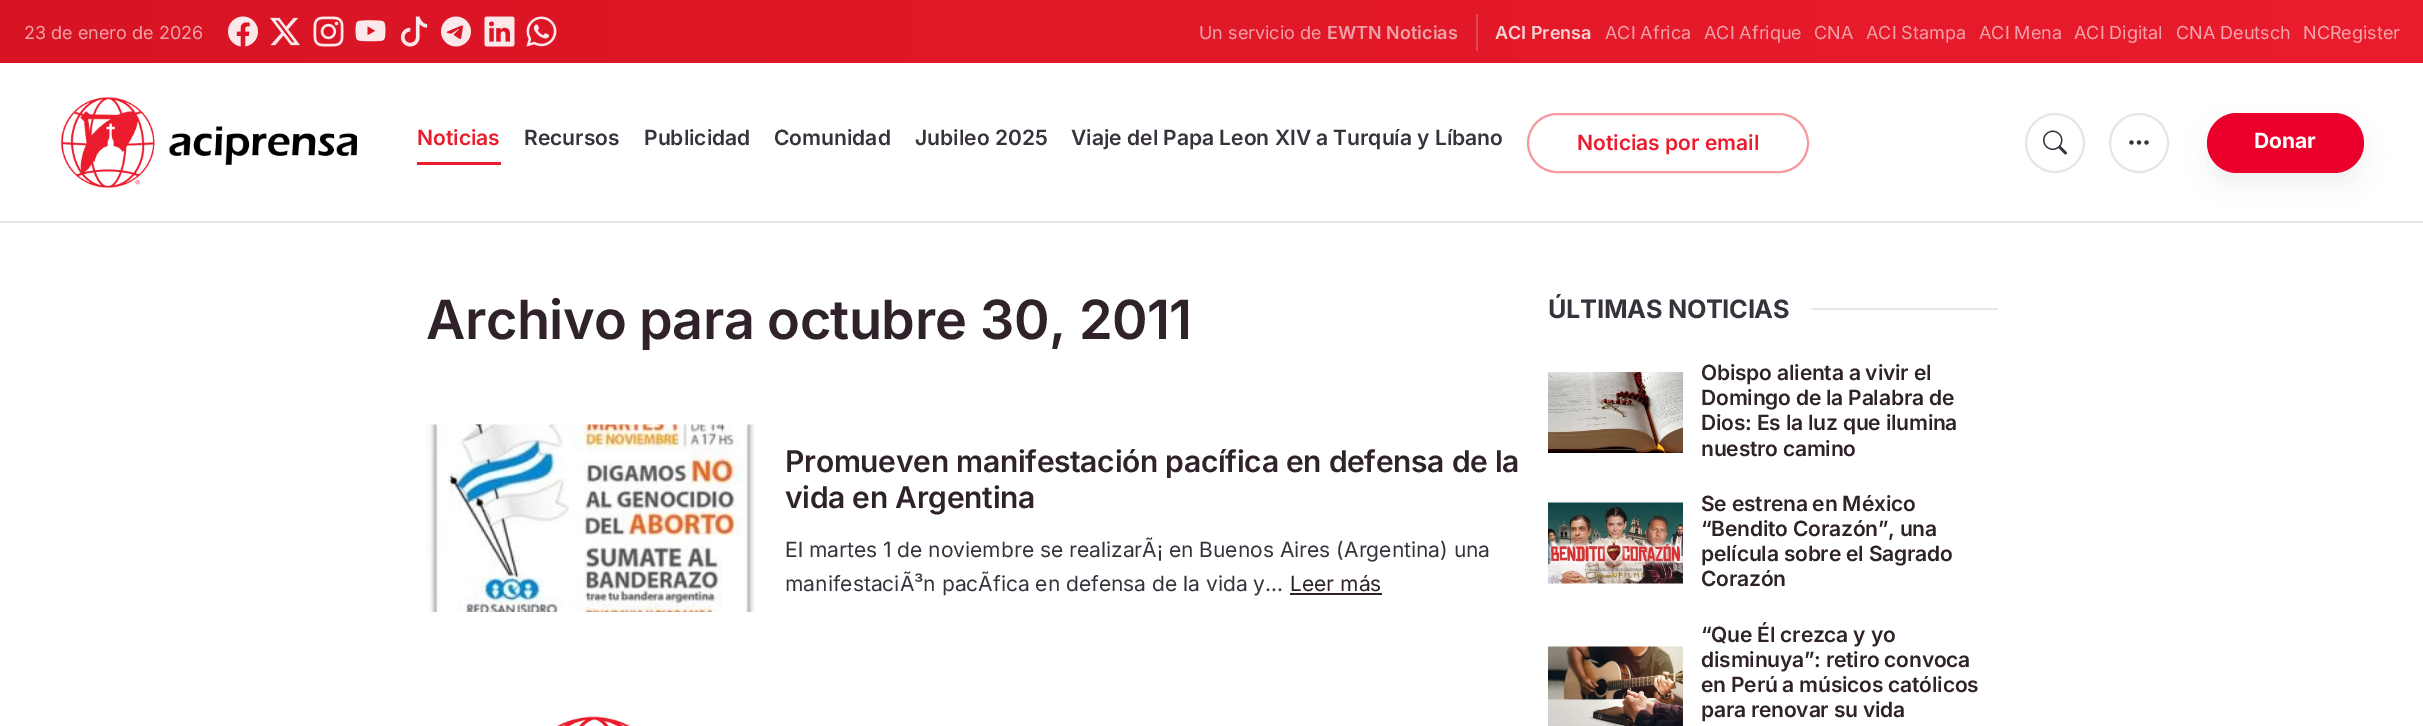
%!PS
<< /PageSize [2423 726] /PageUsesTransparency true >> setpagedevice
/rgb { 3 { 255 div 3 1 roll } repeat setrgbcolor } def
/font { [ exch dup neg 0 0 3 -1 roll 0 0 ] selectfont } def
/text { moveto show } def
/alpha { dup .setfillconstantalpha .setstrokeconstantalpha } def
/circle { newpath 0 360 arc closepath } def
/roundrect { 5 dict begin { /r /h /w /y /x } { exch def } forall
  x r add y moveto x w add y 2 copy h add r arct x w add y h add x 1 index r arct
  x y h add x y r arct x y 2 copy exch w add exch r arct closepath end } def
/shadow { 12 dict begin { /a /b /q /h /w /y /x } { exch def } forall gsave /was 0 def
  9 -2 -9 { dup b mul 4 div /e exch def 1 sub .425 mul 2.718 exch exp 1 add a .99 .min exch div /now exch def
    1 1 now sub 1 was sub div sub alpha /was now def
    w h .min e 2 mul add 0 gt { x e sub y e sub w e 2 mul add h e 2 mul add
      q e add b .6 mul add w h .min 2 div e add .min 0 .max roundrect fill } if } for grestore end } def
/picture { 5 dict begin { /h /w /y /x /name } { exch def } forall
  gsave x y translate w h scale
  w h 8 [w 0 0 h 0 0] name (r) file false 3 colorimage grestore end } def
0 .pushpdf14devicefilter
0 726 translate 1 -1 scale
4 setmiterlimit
255 255 255 rgb
0 0 2423 726 rectfill
231 229 233 rgb
0 221 2423 2 rectfill
gsave 0 0 moveto 2423 0 rlineto 0 63 rlineto -2423 0 rlineto closepath clip newpath
<< /ShadingType 2 /ColorSpace /DeviceRGB /Coords [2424 31 0 32] /Extend [true true] /Function << /FunctionType 2 /Domain [0 1] /C0 [0.918 0.11 0.176] /C1 [0.847 0.078 0.141] /N 1 >> >> shfill grestore
(img_01.rgb) 228 16 30 31 picture
(img_02.rgb) 270 17 30 29 picture
(img_03.rgb) 313 16 31 31 picture
(img_04.rgb) 355 20 31 22 picture
(img_05.rgb) 400 16 28 31 picture
(img_06.rgb) 441 16 30 31 picture
(img_07.rgb) 484 16 31 31 picture
(img_08.rgb) 526 16 31 31 picture
233 71 84 rgb
1476 14 2 37 rectfill
(img_09.rgb) 60 97 297 91 picture
234 28 45 rgb
417 162 84 3 rectfill
246 152 160 rgb
2 setlinewidth
1528 114 280 58 29 roundrect stroke
231 229 233 rgb
2055 143 29 circle stroke
(img_10.rgb) 2043 130 24 25 picture
2139 143 29 circle stroke
(img_11.rgb) 2129 140 20 5 picture
0 0 0 rgb
2216 134 139 42 21 15 0.1 shadow
234 0 42 rgb
2207 113 157 60 30 roundrect fill
(img_12.rgb) 426 424 329 188 picture
47 34 42 rgb
1290 593 92 2 rectfill
(img_13.rgb) 555 715 76 11 picture
231 229 233 rgb
1812 308 186 2 rectfill
(img_14.rgb) 1548 372 135 81 picture
(img_15.rgb) 1548 502 135 82 picture
(img_16.rgb) 1548 646 135 80 picture
/Inter-Regular 18 font
240 161 168 rgb
(23 de enero de 2026) 24 39 text
(Un servicio de) 1199 39 text
/Inter-SemiBold 18 font
(EWTN Noticias) 1327 39 text
249 209 212 rgb
(ACI Prensa) 1495 39 text
/Inter-Regular 18 font
240 161 168 rgb
(ACI Africa) 1605 39 text
(ACI Afrique) 1704 39 text
(CNA) 1814 39 text
(ACI Stampa) 1866 39 text
(ACI Mena) 1979 39 text
246 164 171 rgb
(ACI Digital) 2074 39 text
(CNA Deutsch) 2176 39 text
(NCRegister) 2303 39 text
/Inter-SemiBold 21 font
234 28 45 rgb
(Noticias) 417 145 text
56 50 60 rgb
(Recursos) 524 145 text
(Publicidad) 644 145 text
(Comunidad) 774 145 text
(Jubileo 2025) 915 145 text
(Viaje del Papa Leon XIV a Turquía y Líbano) 1071 145 text
234 28 45 rgb
(Noticias por email) 1577 150 text
/Inter-Bold 21 font
255 255 255 rgb
(Donar) 2254 148 text
/Inter-SemiBold 54 font
47 34 42 rgb
426 339 moveto -0.55 0 (Archivo para octubre 30, 2011) ashow
/Inter-SemiBold 30 font
785 472 moveto -0.3 0 (Promueven manifestación pacífica en defensa de la) ashow
785 508 moveto -0.3 0 (vida en Argentina) ashow
/Inter-Regular 21 font
56 50 60 rgb
(El martes 1 de noviembre se realizarÃ¡ en Buenos Aires \(Argentina\) una) 785 557 text
(manifestaciÃ³n pacÃfica en defensa de la vida y...) 785 591 text
47 34 42 rgb
(Leer más) 1290 591 text
/Inter-Bold 25.25 font
56 50 60 rgb
1548 318 moveto -0.25 0 (ÚLTIMAS NOTICIAS) ashow
/Inter-SemiBold 21 font
47 34 42 rgb
1701 380 moveto -0.2 0 (Obispo alienta a vivir el) ashow
1701 405 moveto -0.2 0 (Domingo de la Palabra de) ashow
1701 430 moveto -0.2 0 (Dios: Es la luz que ilumina) ashow
1701 456 moveto -0.2 0 (nuestro camino) ashow
1701 511 moveto -0.2 0 (Se estrena en México) ashow
1701 536 moveto -0.2 0 (“Bendito Corazón”, una) ashow
1701 561 moveto -0.2 0 (película sobre el Sagrado) ashow
1701 586 moveto -0.2 0 (Corazón) ashow
1701 642 moveto -0.2 0 (“Que Él crezca y yo) ashow
1701 667 moveto -0.2 0 (disminuya”: retiro convoca) ashow
1701 692 moveto -0.2 0 (en Perú a músicos católicos) ashow
1701 717 moveto -0.2 0 (para renovar su vida) ashow
.poppdf14devicefilter showpage
